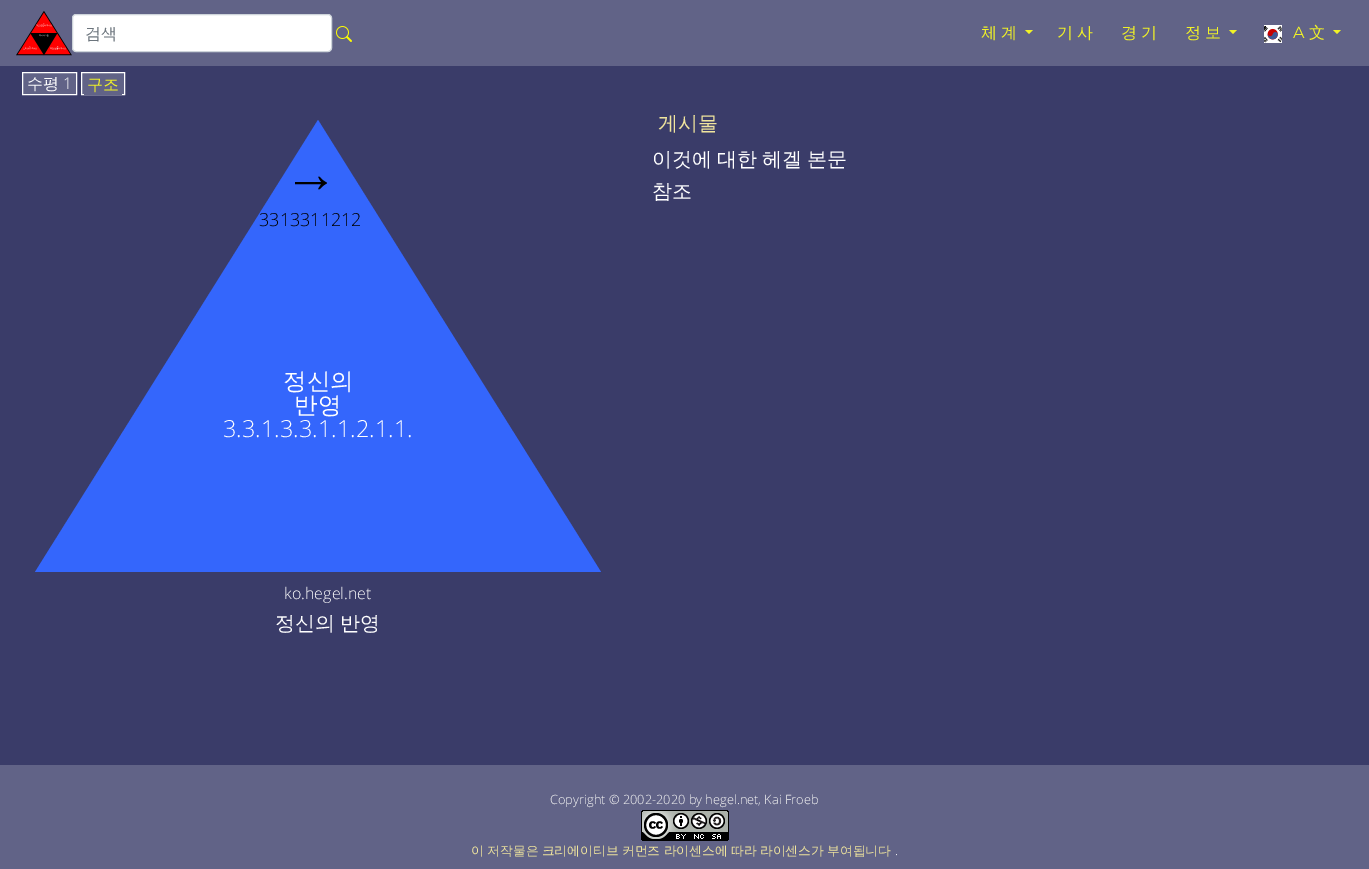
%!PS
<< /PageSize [1369 869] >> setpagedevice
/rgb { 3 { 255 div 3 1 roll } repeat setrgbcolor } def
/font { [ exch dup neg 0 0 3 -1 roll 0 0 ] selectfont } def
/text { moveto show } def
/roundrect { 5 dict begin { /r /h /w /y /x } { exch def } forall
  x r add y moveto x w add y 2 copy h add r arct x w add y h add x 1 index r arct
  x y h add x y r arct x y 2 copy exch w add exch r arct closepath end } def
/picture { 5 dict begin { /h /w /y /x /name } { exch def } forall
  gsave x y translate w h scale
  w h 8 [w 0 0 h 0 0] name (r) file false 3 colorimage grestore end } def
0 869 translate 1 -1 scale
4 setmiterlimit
58 60 105 rgb
0 0 1369 869 rectfill
97 99 135 rgb
0 0 1369 66 rectfill
(img_01.rgb) 16 10 56 46 picture
255 255 255 rgb
72.5 14.5 259 37 3.5 roundrect gsave fill grestore
206 212 218 rgb
stroke
(img_02.rgb) 336 26 16 16 picture
241 242 39 rgb
1025 30 moveto 8 0 rlineto -4 4 rlineto closepath fill
1229 30 moveto 8 0 rlineto -4 4 rlineto closepath fill
(img_03.rgb) 1264 25 18 18 picture
1333 30 moveto 8 0 rlineto -4 4 rlineto closepath fill
97 99 135 rgb
22.5 72.5 moveto 54 0 rlineto 0 22 rlineto -54 0 rlineto closepath gsave fill grestore
255 255 255 rgb
stroke
97 99 135 rgb
81.5 72.5 moveto 43 0 rlineto 0 22 rlineto -43 0 rlineto closepath gsave fill grestore
255 255 255 rgb
stroke
97 99 135 rgb
88 75 moveto 30 0 rlineto 2 0 4 2 4 4 rcurveto 0 16 rlineto -38 0 rlineto 0 -16 rlineto 0 -2 2 -4 4 -4 rcurveto closepath fill
52 102 252 rgb
35 572 moveto 566 0 rlineto -283 -452 rlineto closepath fill
97 99 135 rgb
0 765 1369 104 rectfill
(img_04.rgb) 641 810 88 31 picture
/WenQuanYiZenHei-Medium 16 font
108 117 125 rgb
(검색) 85 39 text
241 242 39 rgb
981 38 moveto 4 0 (체계) ashow
1057 38 moveto 4 0 (기사) ashow
1121 38 moveto 4 0 (경기) ashow
1185 38 moveto 4 0 (정보) ashow
/Montserrat-Regular 16 font
1293 38 moveto 4 0 (A) ashow
/WenQuanYiZenHei-Medium 16 font
1309 38 moveto 4 0 (文) ashow
255 255 255 rgb
(수평) 27 89 text
/OpenSans-Light 16 font
(1) 63 89 text
/WenQuanYiZenHei-Medium 16 font
241 242 39 rgb
(구조) 87 90 text
/LiberationSans-Regular 54 font
0 0 0 rgb
(→) 284 192 text
/OpenSans-Light 18 font
(3313311212) 259 226 text
/WenQuanYiZenHei-Medium 23.5 font
255 255 255 rgb
(정신의) 283 389 text
(반영) 294 413 text
/OpenSans-Light 23.5 font
(3.3.1.3.3.1.1.2.1.1.) 223 437 text
/OpenSans-Light 16 font
(ko.hegel.net) 284 599 text
/WenQuanYiZenHei-Medium 20 font
275 630 moveto -1 0 32 (정신의 반영) widthshow
240 229 158 rgb
(게시물) 658 130 text
255 255 255 rgb
652 166 moveto -1 0 32 (이것에 대한 헤겔 본문) widthshow
(참조) 652 198 text
/OpenSans-Light 12.8 font
245 245 245 rgb
(Copyright © 2002-2020 by hegel.net, Kai Froeb) 550 804 text
/WenQuanYiZenHei-Medium 12.8 font
240 229 158 rgb
471 855 moveto -0.5 0 32 (이 저작물은 크리에이티브 커먼즈 라이센스에 따라 라이센스가 부여됩니다) widthshow
/OpenSans-Light 12.8 font
245 245 245 rgb
(.) 895 855 text
showpage
